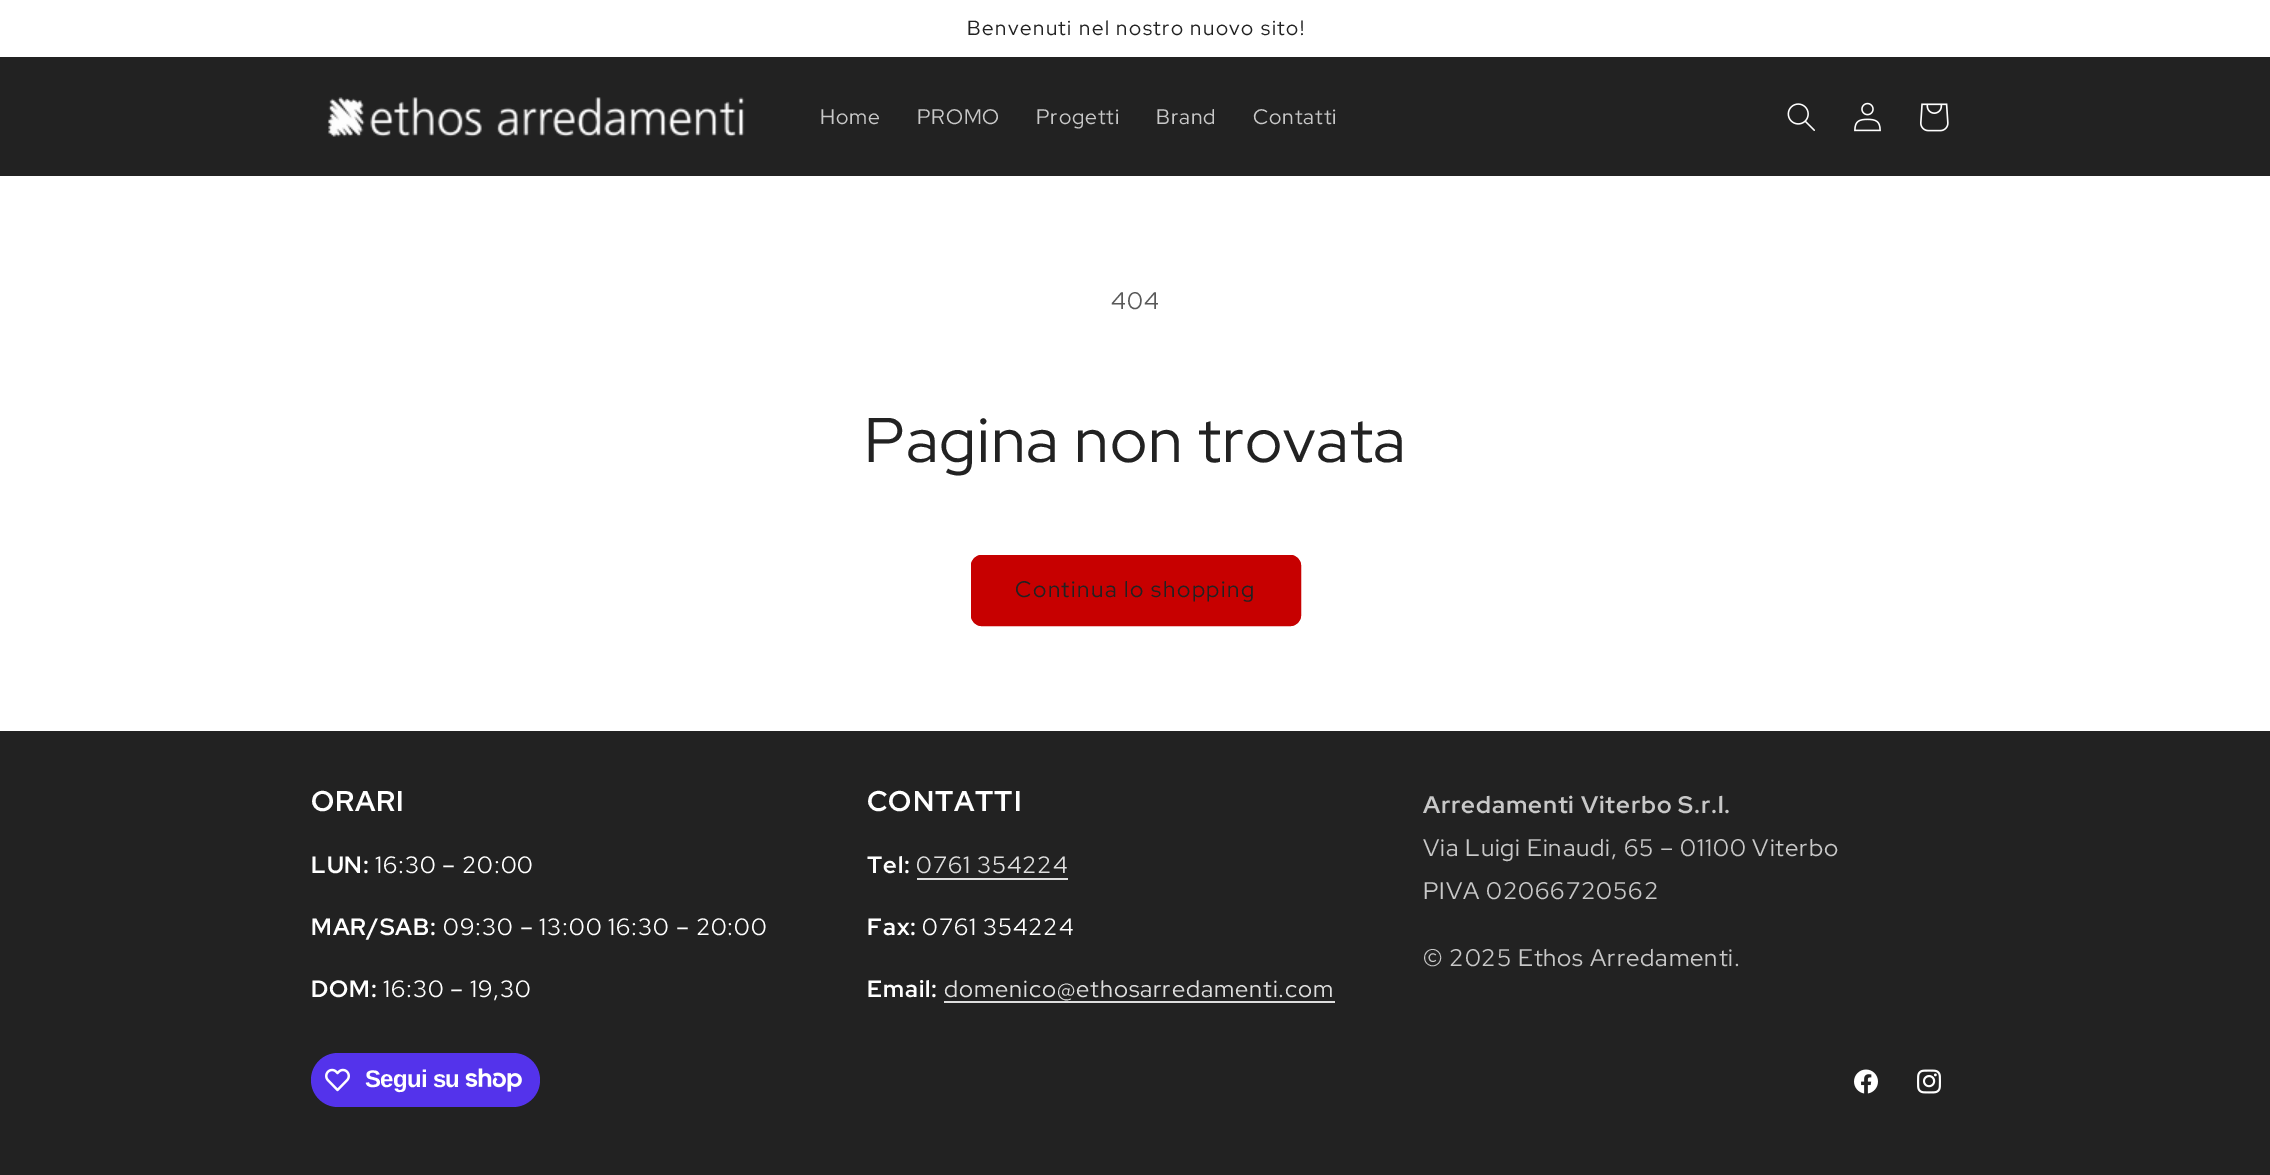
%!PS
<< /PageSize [2270 1175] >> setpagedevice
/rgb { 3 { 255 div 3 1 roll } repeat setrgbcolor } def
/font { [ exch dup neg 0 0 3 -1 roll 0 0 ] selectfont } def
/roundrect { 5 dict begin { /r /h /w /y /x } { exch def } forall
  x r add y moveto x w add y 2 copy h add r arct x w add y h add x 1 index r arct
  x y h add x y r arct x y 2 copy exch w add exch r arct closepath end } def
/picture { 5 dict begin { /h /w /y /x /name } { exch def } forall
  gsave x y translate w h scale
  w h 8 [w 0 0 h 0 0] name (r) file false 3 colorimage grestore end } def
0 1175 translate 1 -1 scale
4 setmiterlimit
255 255 255 rgb
0 0 2270 1175 rectfill
34 34 34 rgb
0 57 2270 119 rectfill
(img_01.rgb) 327 97 418 40 picture
(img_02.rgb) 1787 103 28 28 picture
(img_03.rgb) 1854 102 27 30 picture
(img_04.rgb) 1920 103 29 29 picture
199 0 0 rgb
971 555 330 71 11 roundrect fill
2 setlinewidth
972 556 328 69 10 roundrect stroke
34 34 34 rgb
0 731 2270 444 rectfill
222 222 222 rgb
917 878 151 2 rectfill
944 1001 391 2 rectfill
84 51 235 rgb
311 1053 229 54 27 roundrect fill
(img_05.rgb) 325 1068 25 24 picture
(img_06.rgb) 465 1068 57 24 picture
(img_07.rgb) 1854 1069 24 25 picture
(img_08.rgb) 1917 1069 24 25 picture
/RedHatDisplay-Regular 20.5 font
34 34 34 rgb
967 35 moveto 1.5 0 (Benvenuti nel nostro nuovo sito!) ashow
/RedHatDisplay-Regular 21 font
200 200 200 rgb
820 124 moveto 0.9 0 (Home) ashow
917 124 moveto 0.9 0 (PROMO) ashow
1036 124 moveto 0.9 0 (Progetti) ashow
1156 124 moveto 0.9 0 (Brand) ashow
1253 124 moveto 0.9 0 (Contatti) ashow
/RedHatDisplay-Regular 24 font
89 89 89 rgb
1111 309 moveto 0.9 0 (404) ashow
/RedHatDisplay-Regular 63 font
34 34 34 rgb
864 462 moveto 0.95 0 (Pagina non trovata) ashow
/RedHatDisplay-Regular 22.5 font
1015 597 moveto 1.5 0 (Continua lo shopping) ashow
/RedHatDisplay-Bold 28.5 font
255 255 255 rgb
311 811 moveto 0.95 0 (ORARI) ashow
/RedHatDisplay-Bold 23.6 font
311 873 moveto 0.95 0 (LUN:) ashow
/RedHatDisplay-Regular 23.6 font
375 873 moveto 0.95 0 (16:30 – 20:00) ashow
/RedHatDisplay-Bold 23.6 font
311 935 moveto 0.95 0 (MAR/SAB:) ashow
/RedHatDisplay-Regular 23.6 font
443 935 moveto 0.95 0 (09:30 – 13:00 16:30 – 20:00) ashow
/RedHatDisplay-Bold 23.6 font
311 997 moveto 0.95 0 (DOM:) ashow
/RedHatDisplay-Regular 23.6 font
383 997 moveto 0.95 0 (16:30 – 19,30) ashow
/RedHatDisplay-Bold 28.5 font
867 811 moveto 0.95 0 (CONTATTI) ashow
/RedHatDisplay-Bold 23.6 font
867 873 moveto 0.95 0 (Tel:) ashow
/RedHatDisplay-Regular 23.6 font
222 222 222 rgb
916 873 moveto 0.95 0 (0761 354224) ashow
/RedHatDisplay-Bold 23.6 font
255 255 255 rgb
867 935 moveto 0.95 0 (Fax:) ashow
/RedHatDisplay-Regular 23.6 font
922 935 moveto 0.95 0 (0761 354224) ashow
/RedHatDisplay-Bold 23.6 font
867 997 moveto 0.95 0 (Email:) ashow
/RedHatDisplay-Regular 23.6 font
222 222 222 rgb
944 997 moveto 0.95 0 (domenico@ethosarredamenti.com) ashow
/RedHatDisplay-Bold 24 font
200 200 200 rgb
1423 813 moveto 0.9 0 (Arredamenti Viterbo S.r.l.) ashow
/RedHatDisplay-Regular 24 font
1423 856 moveto 0.9 0 (Via Luigi Einaudi, 65 – 01100 Viterbo) ashow
1423 899 moveto 0.9 0 (PIVA 02066720562) ashow
1423 966 moveto 0.9 0 (© 2025 Ethos Arredamenti.) ashow
/LiberationSans-Bold 24 font
255 255 255 rgb
365 1087 moveto -0.75 0 (Segui su) ashow
showpage
